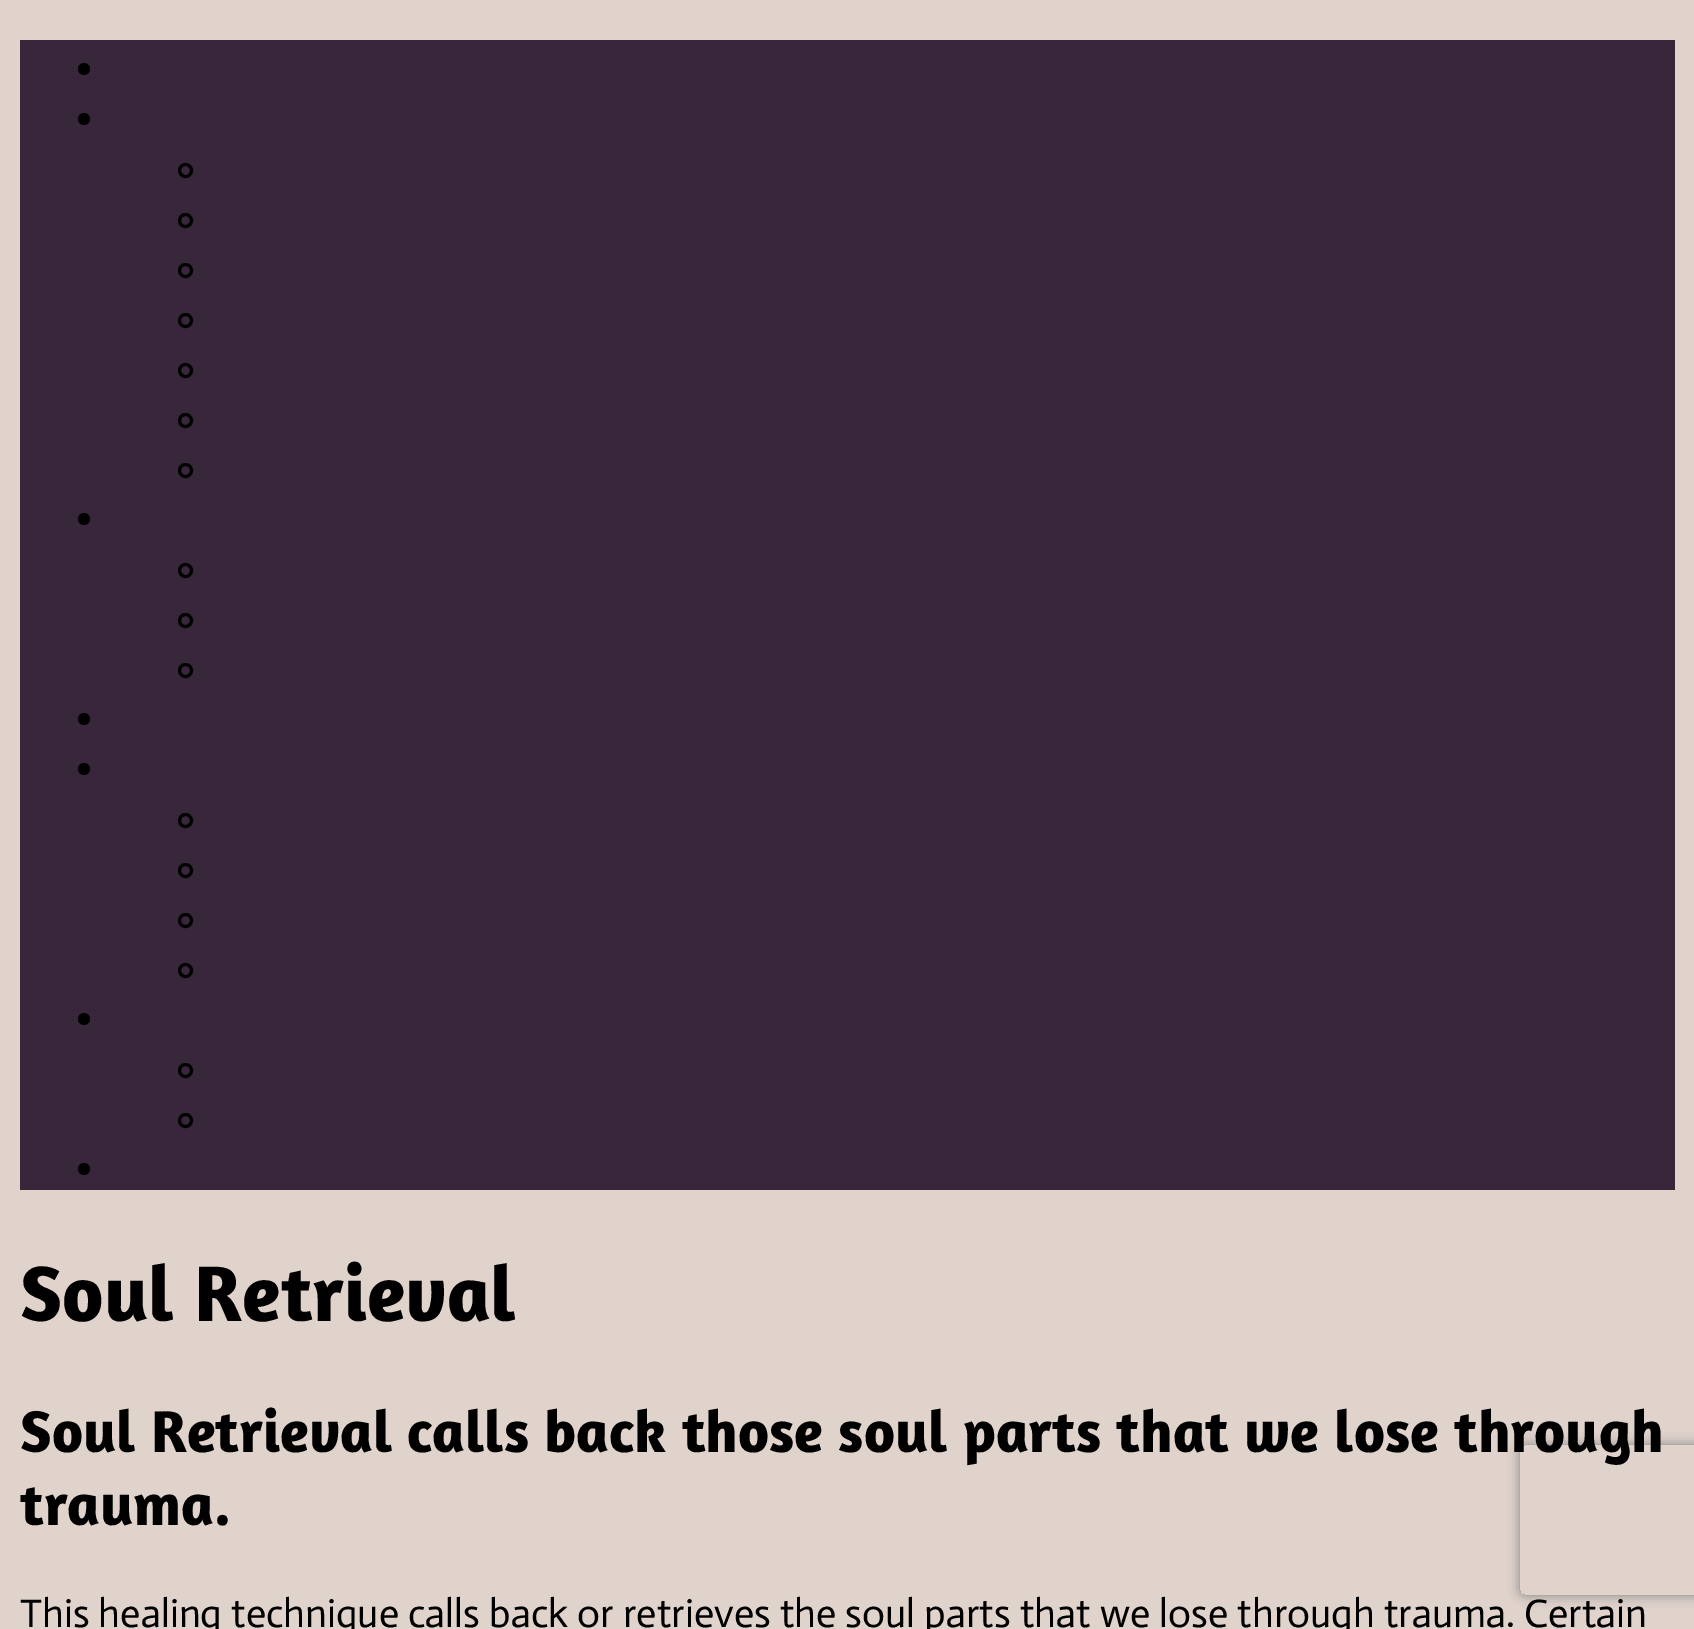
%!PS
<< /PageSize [1694 1629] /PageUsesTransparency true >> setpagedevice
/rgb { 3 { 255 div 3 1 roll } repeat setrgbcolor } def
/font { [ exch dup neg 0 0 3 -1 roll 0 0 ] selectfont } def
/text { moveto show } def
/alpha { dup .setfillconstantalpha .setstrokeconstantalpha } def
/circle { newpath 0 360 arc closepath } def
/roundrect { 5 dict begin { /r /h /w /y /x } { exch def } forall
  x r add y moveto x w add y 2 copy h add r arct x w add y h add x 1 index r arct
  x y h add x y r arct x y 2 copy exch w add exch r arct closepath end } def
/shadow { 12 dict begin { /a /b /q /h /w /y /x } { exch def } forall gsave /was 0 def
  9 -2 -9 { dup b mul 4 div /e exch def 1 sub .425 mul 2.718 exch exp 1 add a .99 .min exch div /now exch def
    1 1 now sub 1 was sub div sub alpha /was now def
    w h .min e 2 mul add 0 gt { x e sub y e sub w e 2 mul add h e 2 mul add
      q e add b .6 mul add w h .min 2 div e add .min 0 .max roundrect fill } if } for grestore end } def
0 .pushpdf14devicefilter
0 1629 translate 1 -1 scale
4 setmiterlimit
224 211 203 rgb
0 0 1694 1629 rectfill
56 38 59 rgb
20 40 1655 1150 rectfill
0 0 0 rgb
84 69 6 circle fill
84 119 6 circle fill
3 setlinewidth
185.5 170.5 6 circle stroke
185.5 220.5 6 circle stroke
185.5 270.5 6 circle stroke
185.5 320.5 6 circle stroke
185.5 370.5 6 circle stroke
185.5 420.5 6 circle stroke
185.5 470.5 6 circle stroke
84 519 6 circle fill
185.5 570.5 6 circle stroke
185.5 620.5 6 circle stroke
185.5 670.5 6 circle stroke
84 719 6 circle fill
84 769 6 circle fill
185.5 820.5 6 circle stroke
185.5 870.5 6 circle stroke
185.5 920.5 6 circle stroke
185.5 970.5 6 circle stroke
84 1019 6 circle fill
185.5 1070.5 6 circle stroke
185.5 1120.5 6 circle stroke
84 1169 6 circle fill
gsave
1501 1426 moveto 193 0 rlineto 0 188 rlineto -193 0 rlineto closepath 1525 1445 moveto 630 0 rlineto 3 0 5 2 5 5 rcurveto 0 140 rlineto 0 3 -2 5 -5 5 rcurveto -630 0 rlineto -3 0 -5 -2 -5 -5 rcurveto 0 -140 rlineto 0 -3 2 -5 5 -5 rcurveto closepath eoclip newpath
128 128 128 rgb
1520 1445 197 150 5 6 1 shadow
grestore
/Amaranth-Bold 80 font
(Soul Retrieval) 20 1321 text
/Amaranth-Bold 60 font
(Soul Retrieval calls back those soul parts that we lose through) 20 1452 text
(trauma.) 20 1525 text
/Actor-Regular 40 font
(This healing technique calls back or retrieves the soul parts that we lose through trauma. Certain) 20 1627 text
.poppdf14devicefilter showpage
